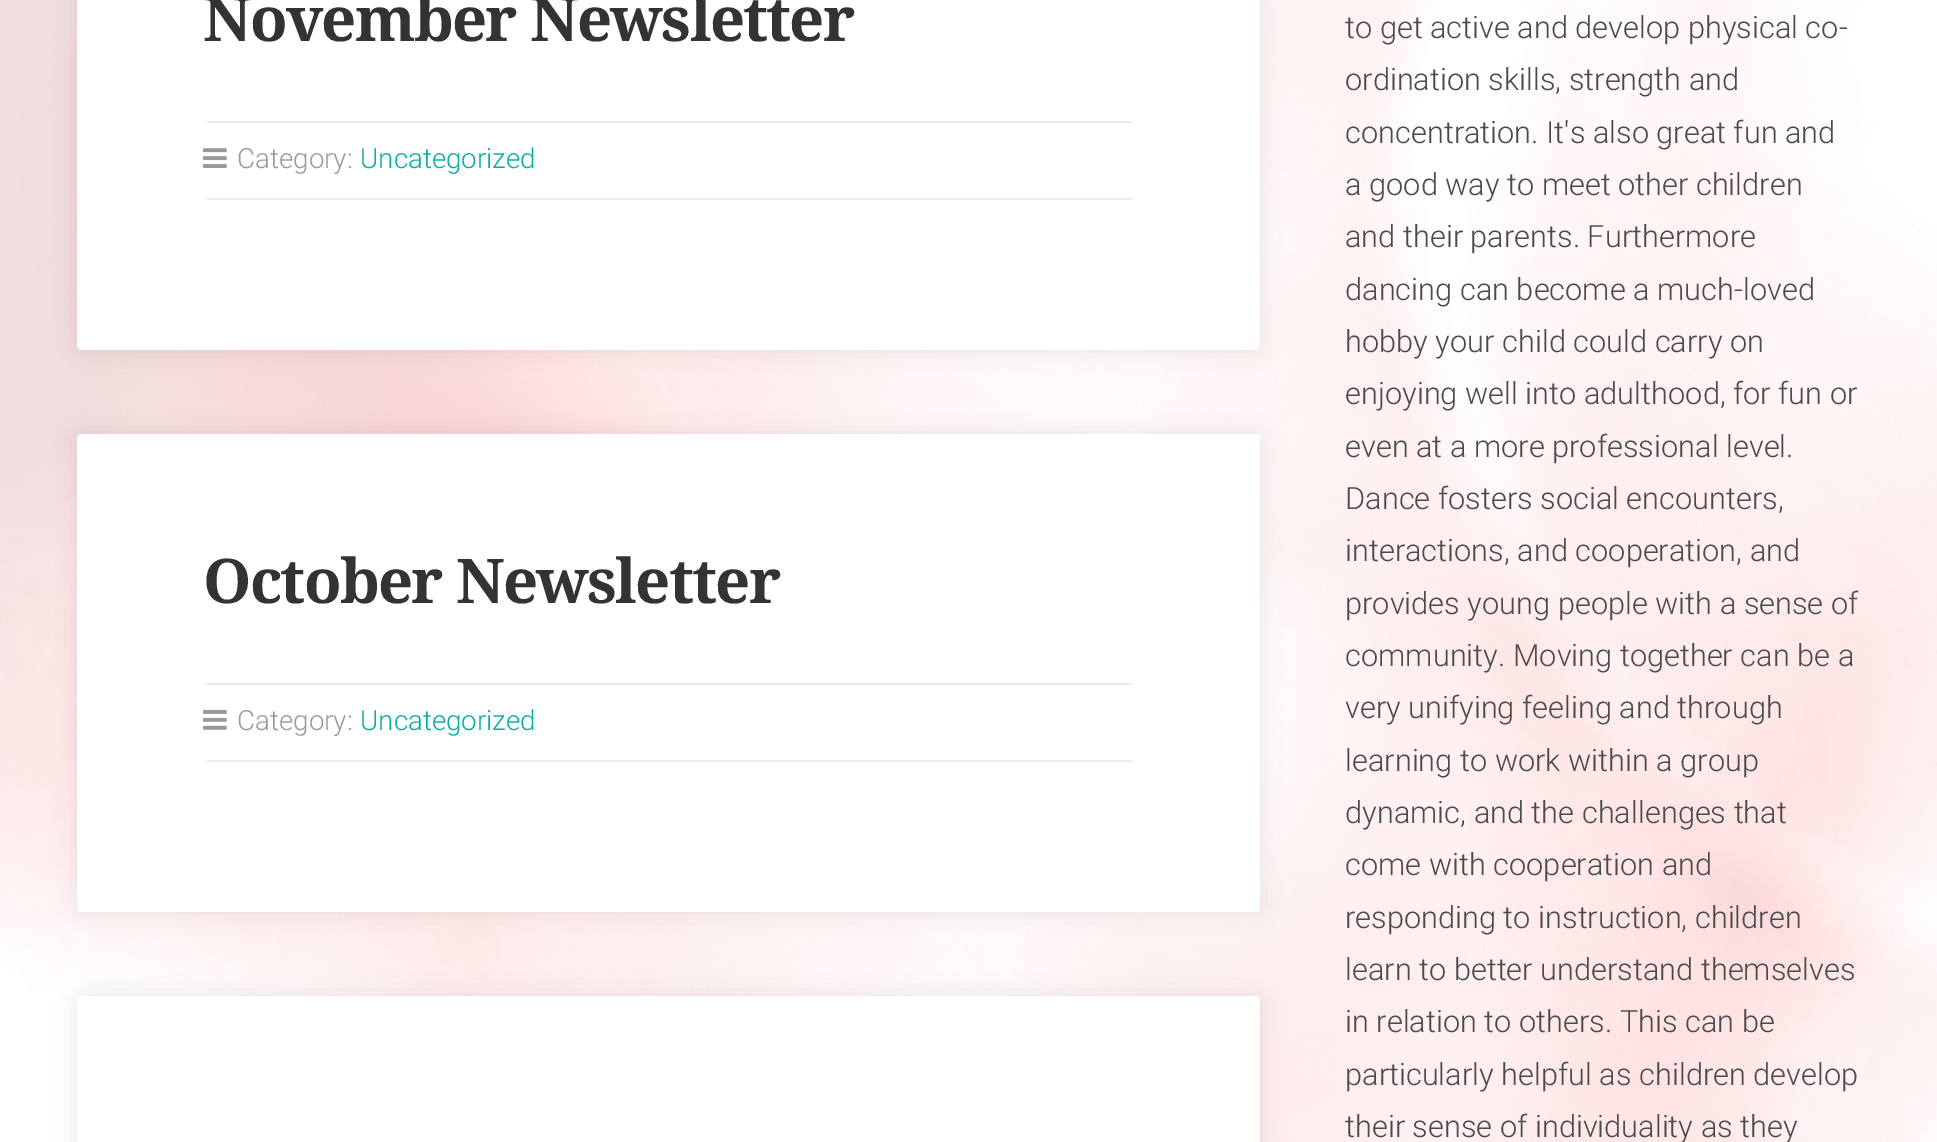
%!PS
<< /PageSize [1937 1142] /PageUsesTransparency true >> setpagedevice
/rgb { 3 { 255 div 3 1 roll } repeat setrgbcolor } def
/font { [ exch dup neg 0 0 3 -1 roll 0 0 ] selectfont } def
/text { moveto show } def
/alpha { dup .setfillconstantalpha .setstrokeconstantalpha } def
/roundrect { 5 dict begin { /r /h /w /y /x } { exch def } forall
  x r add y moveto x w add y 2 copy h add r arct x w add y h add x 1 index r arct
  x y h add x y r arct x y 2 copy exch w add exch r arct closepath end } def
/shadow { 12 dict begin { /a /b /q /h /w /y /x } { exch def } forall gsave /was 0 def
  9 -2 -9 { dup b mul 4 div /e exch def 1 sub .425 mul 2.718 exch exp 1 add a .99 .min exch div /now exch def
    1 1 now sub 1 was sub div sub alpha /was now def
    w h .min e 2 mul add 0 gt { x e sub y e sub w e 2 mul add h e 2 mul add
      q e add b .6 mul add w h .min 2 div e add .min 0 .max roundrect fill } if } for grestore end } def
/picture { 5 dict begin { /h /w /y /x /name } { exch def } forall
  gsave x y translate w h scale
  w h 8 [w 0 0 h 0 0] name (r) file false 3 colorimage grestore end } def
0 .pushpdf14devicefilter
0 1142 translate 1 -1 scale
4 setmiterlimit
255 255 255 rgb
0 0 1937 1142 rectfill
(img_01.rgb) 0 0 1937 1142 picture
0 0 0 rgb
77 -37 1183 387 5 10.5 0.08 shadow
255 255 255 rgb
77 -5 1183 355 5 roundrect fill
235 235 235 rgb
207 121 925 2 rectfill
207 198 925 2 rectfill
(img_02.rgb) 203 148 24 20 picture
0 0 0 rgb
77 434 1183 478 5 10.5 0.08 shadow
255 255 255 rgb
77 434 1183 478 5 roundrect fill
235 235 235 rgb
207 683 925 2 rectfill
207 760 925 2 rectfill
(img_03.rgb) 203 709 24 21 picture
0 0 0 rgb
77 996 1183 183 5 10.5 0.08 shadow
255 255 255 rgb
77 996 1183 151 5 roundrect fill
/DroidSerif-Bold 61.6 font
51 51 51 rgb
203 41 moveto -1.75 0 (November Newsletter) ashow
/Roboto-Light 27.75 font
153 153 153 rgb
(Category:) 237 168 text
5 173 156 rgb
(Uncategorized) 360 168 text
/DroidSerif-Bold 61.6 font
51 51 51 rgb
203 603 moveto -1.75 0 (October Newsletter) ashow
/Roboto-Light 27.75 font
153 153 153 rgb
(Category:) 237 730 text
5 173 156 rgb
(Uncategorized) 360 730 text
/Roboto-Light 30.75 font
76 75 75 rgb
(to get active and develop physical co-) 1345 38 text
(ordination skills, strength and) 1345 90 text
(concentration. It's also great fun and) 1345 143 text
(a good way to meet other children) 1345 195 text
(and their parents. Furthermore) 1345 247 text
(dancing can become a much-loved) 1345 300 text
(hobby your child could carry on) 1345 352 text
(enjoying well into adulthood, for fun or) 1345 404 text
(even at a more professional level.) 1345 457 text
(Dance fosters social encounters,) 1345 509 text
(interactions, and cooperation, and) 1345 561 text
(provides young people with a sense of) 1345 614 text
(community. Moving together can be a) 1345 666 text
(very unifying feeling and through) 1345 718 text
(learning to work within a group) 1345 771 text
(dynamic, and the challenges that) 1345 823 text
(come with cooperation and) 1345 875 text
(responding to instruction, children) 1345 928 text
(learn to better understand themselves) 1345 980 text
(in relation to others. This can be) 1345 1032 text
(particularly helpful as children develop) 1345 1085 text
(their sense of individuality as they) 1345 1137 text
.poppdf14devicefilter showpage
